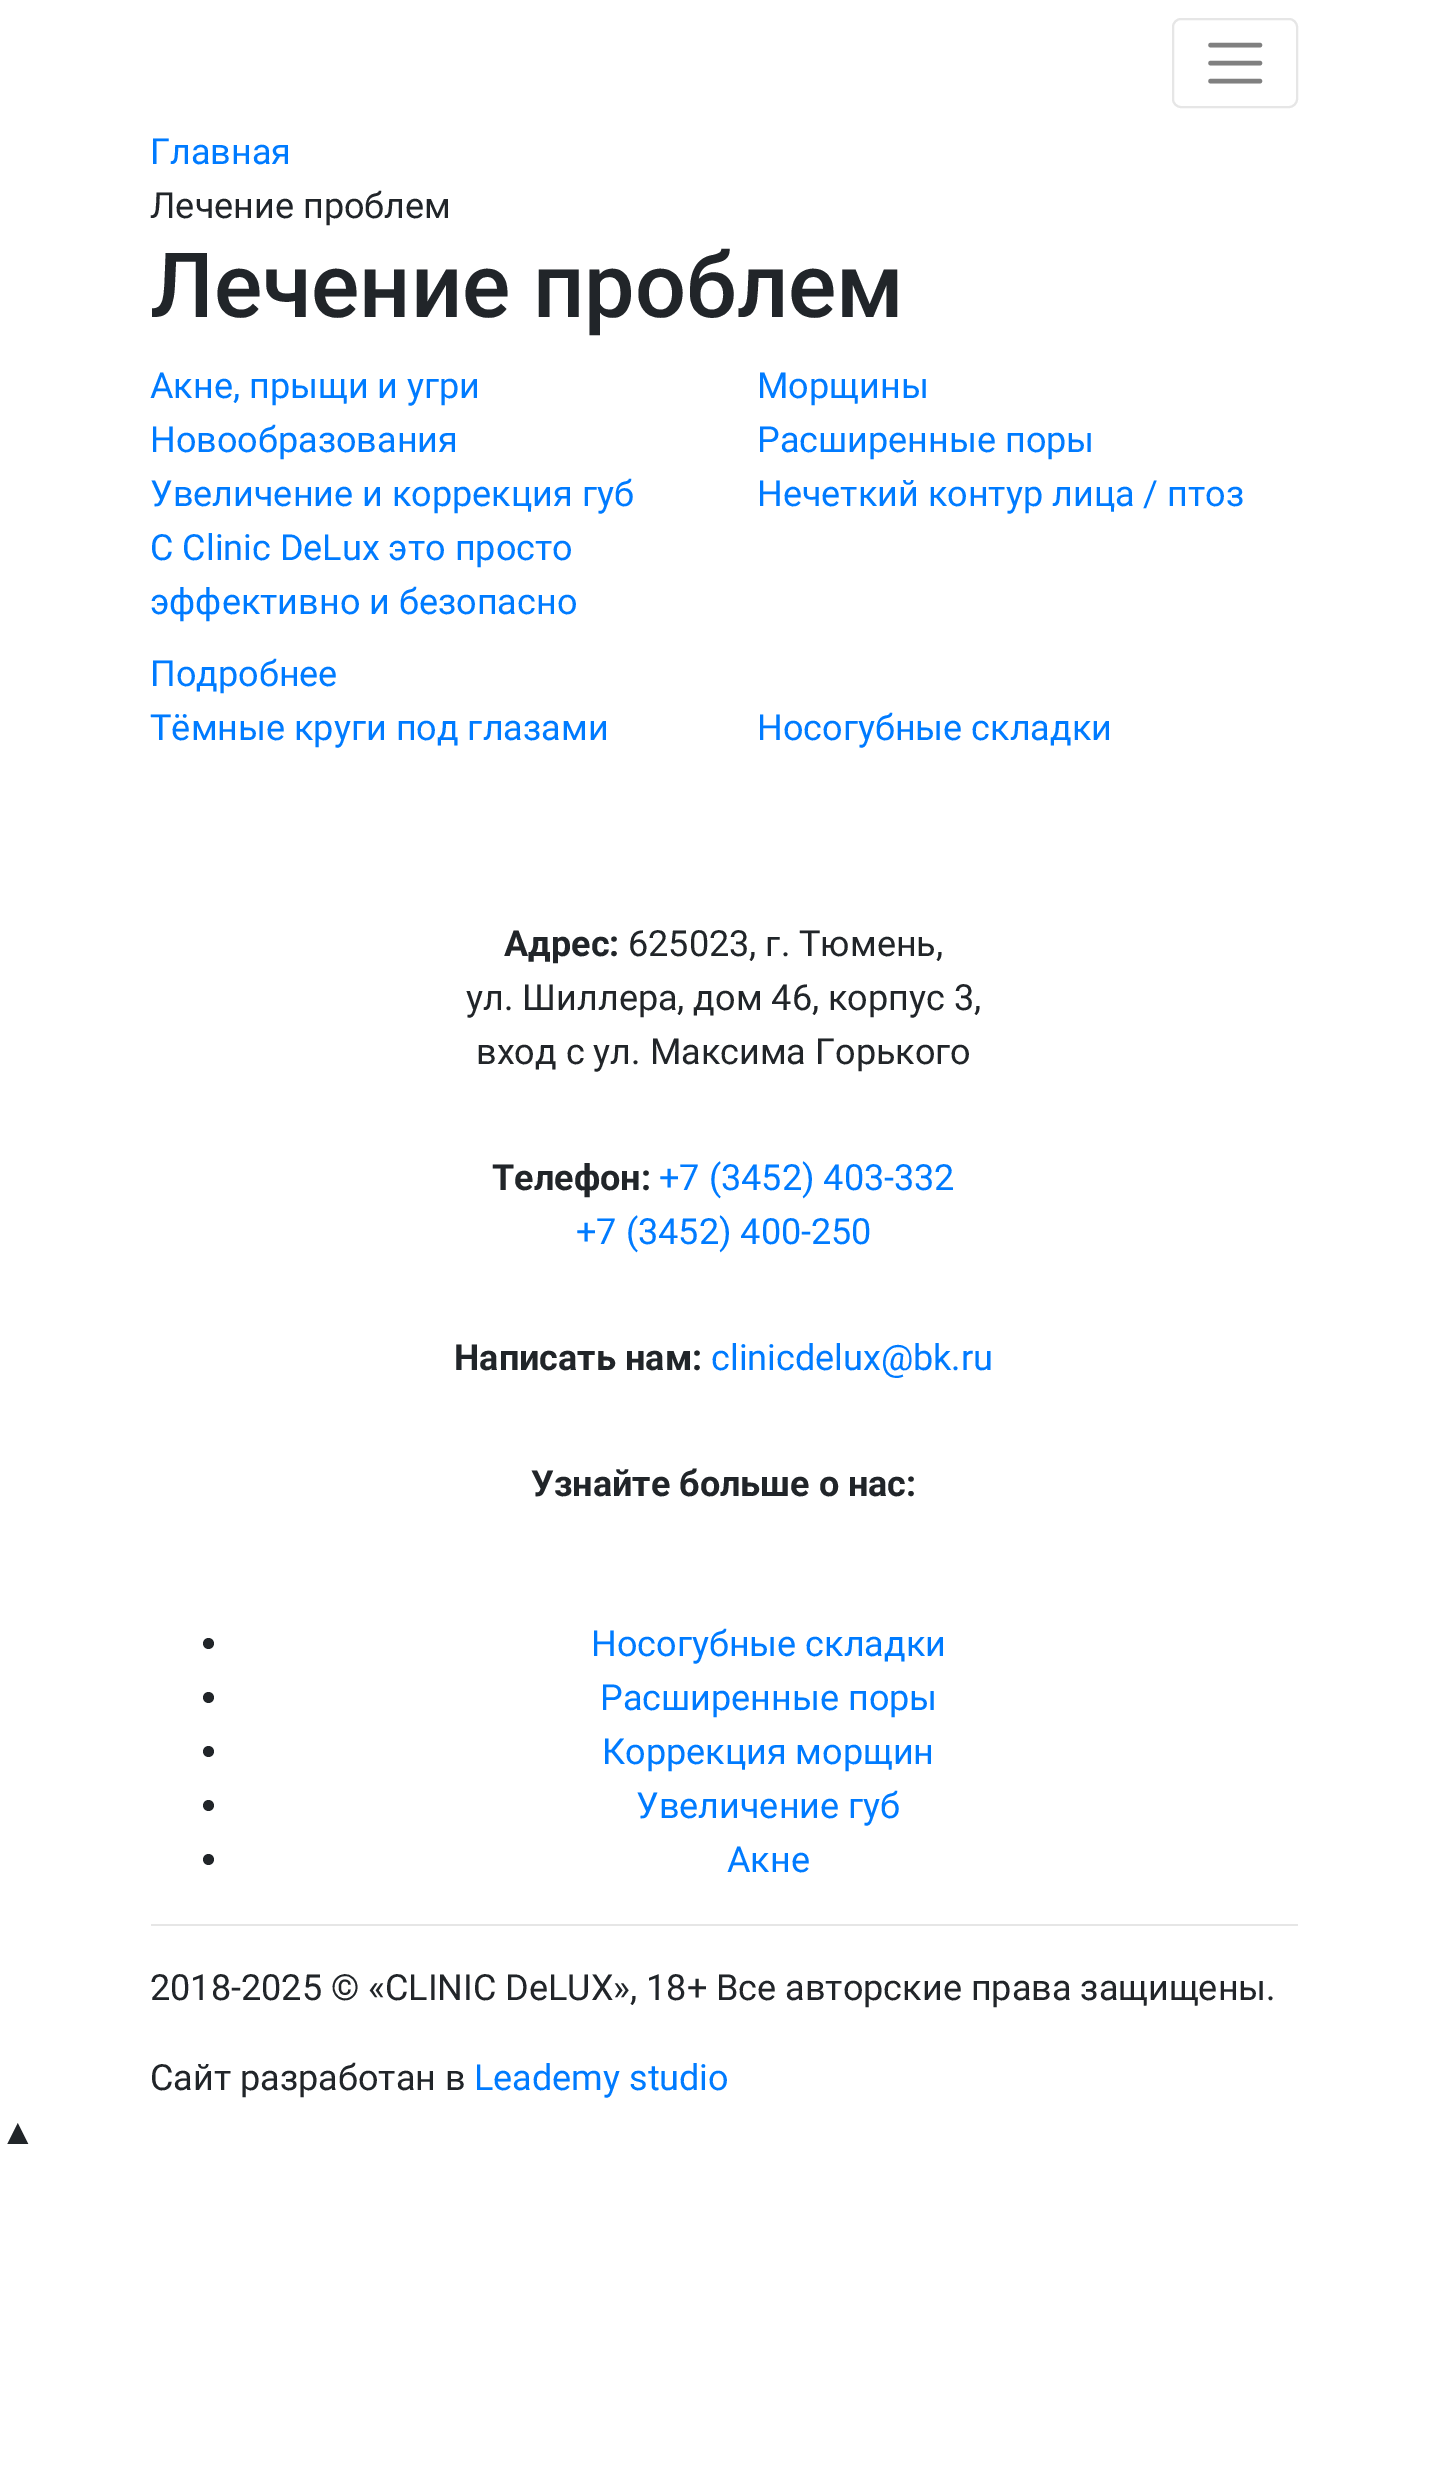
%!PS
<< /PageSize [1446 2486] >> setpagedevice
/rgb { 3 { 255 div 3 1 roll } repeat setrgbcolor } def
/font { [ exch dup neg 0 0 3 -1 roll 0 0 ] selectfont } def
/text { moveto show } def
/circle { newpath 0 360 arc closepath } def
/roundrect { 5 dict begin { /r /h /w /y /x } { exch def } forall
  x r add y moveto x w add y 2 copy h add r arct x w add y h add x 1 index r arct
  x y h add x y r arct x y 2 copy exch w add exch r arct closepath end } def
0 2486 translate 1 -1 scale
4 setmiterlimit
255 255 255 rgb
0 0 1446 2486 rectfill
230 230 230 rgb
2 setlinewidth
1173 19 124 88 8 roundrect stroke
128 128 128 rgb
4.5 setlinewidth
1 setlinecap
1210.5 45 moveto 49.5 0 rlineto 1210.5 63 moveto 49.5 0 rlineto 1210.5 81 moveto 49.5 0 rlineto stroke
33 37 41 rgb
208.5 1643.5 5.5 circle fill
208.5 1697.5 5.5 circle fill
208.5 1751.5 5.5 circle fill
208.5 1805.5 5.5 circle fill
208.5 1859.5 5.5 circle fill
230 230 230 rgb
151 1924 1147 2 rectfill
/Roboto-Regular 36 font
0 123 255 rgb
(Главная) 150 164 text
33 37 41 rgb
(Лечение проблем) 150 218 text
/Roboto-Medium 90 font
(Лечение проблем) 150 317 text
/Roboto-Regular 36 font
0 123 255 rgb
(Акне, прыщи и угри) 150 398 text
(Морщины) 757 398 text
(Новообразования) 150 452 text
(Расширенные поры) 757 452 text
(Увеличение и коррекция губ) 150 506 text
(С Clinic DeLux это просто) 150 560 text
(эффективно и безопасно) 150 614 text
(Подробнее) 150 686 text
(Нечеткий контур лица / птоз) 757 506 text
(Тёмные круги под глазами) 150 740 text
(Носогубные складки) 757 740 text
/Roboto-Bold 36 font
33 37 41 rgb
(Адрес:) 504 956 text
/Roboto-Regular 36 font
(625023, г. Тюмень,) 628 956 text
(ул. Шиллера, дом 46, корпус 3,) 466 1010 text
(вход с ул. Максима Горького) 476 1064 text
/Roboto-Bold 36 font
(Телефон:) 492 1190 text
/Roboto-Regular 36 font
0 123 255 rgb
(+7 \(3452\) 403-332) 659 1190 text
(+7 \(3452\) 400-250) 576 1244 text
/Roboto-Bold 36 font
33 37 41 rgb
(Написать нам:) 454 1370 text
/Roboto-Regular 36 font
0 123 255 rgb
(clinicdelux@bk.ru) 711 1370 text
/Roboto-Bold 36 font
33 37 41 rgb
(Узнайте больше о нас:) 531 1496 text
/Roboto-Regular 36 font
0 123 255 rgb
(Носогубные складки) 591 1656 text
(Расширенные поры) 600 1710 text
(Коррекция морщин) 602 1764 text
(Увеличение губ) 636 1818 text
(Акне) 727 1872 text
33 37 41 rgb
(2018-2025 © «CLINIC DeLUX», 18+ Все авторские права защищены.) 150 2000 text
(Сайт разработан в) 150 2090 text
0 123 255 rgb
(Leademy studio) 474 2090 text
/LiberationSans-Regular 36 font
33 37 41 rgb
(▲) 0 2144 text
showpage
